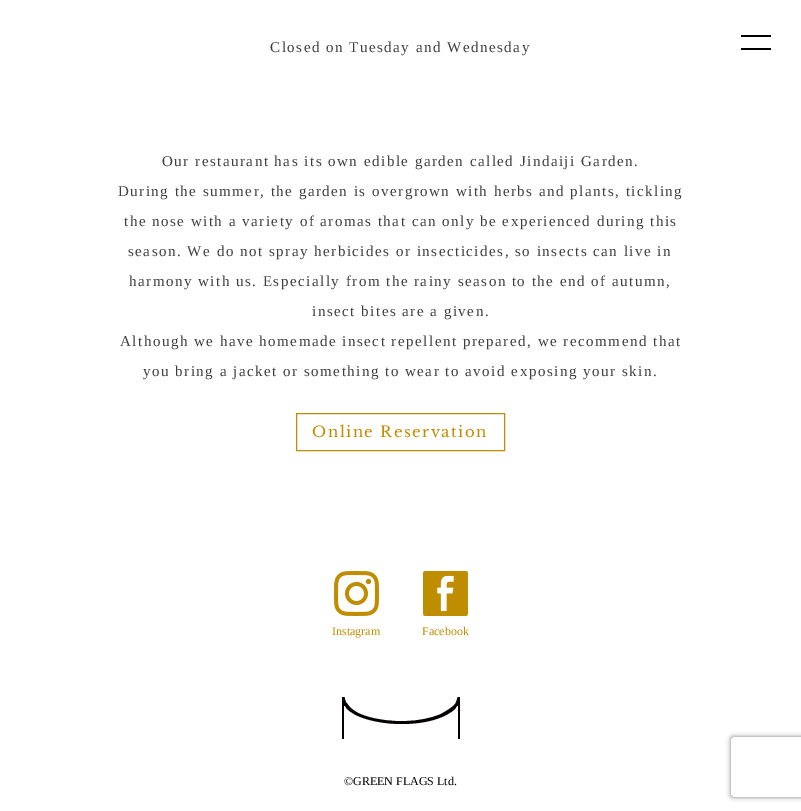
%!PS
<< /PageSize [801 811] /PageUsesTransparency true >> setpagedevice
/rgb { 3 { 255 div 3 1 roll } repeat setrgbcolor } def
/font { [ exch dup neg 0 0 3 -1 roll 0 0 ] selectfont } def
/text { moveto show } def
/alpha { dup .setfillconstantalpha .setstrokeconstantalpha } def
/roundrect { 5 dict begin { /r /h /w /y /x } { exch def } forall
  x r add y moveto x w add y 2 copy h add r arct x w add y h add x 1 index r arct
  x y h add x y r arct x y 2 copy exch w add exch r arct closepath end } def
/shadow { 12 dict begin { /a /b /q /h /w /y /x } { exch def } forall gsave /was 0 def
  9 -2 -9 { dup b mul 4 div /e exch def 1 sub .425 mul 2.718 exch exp 1 add a .99 .min exch div /now exch def
    1 1 now sub 1 was sub div sub alpha /was now def
    w h .min e 2 mul add 0 gt { x e sub y e sub w e 2 mul add h e 2 mul add
      q e add b .6 mul add w h .min 2 div e add .min 0 .max roundrect fill } if } for grestore end } def
/picture { 5 dict begin { /h /w /y /x /name } { exch def } forall
  gsave x y translate w h scale
  w h 8 [w 0 0 h 0 0] name (r) file false 3 colorimage grestore end } def
0 .pushpdf14devicefilter
0 811 translate 1 -1 scale
4 setmiterlimit
255 255 255 rgb
0 0 801 811 rectfill
191 141 0 rgb
296.5 413.5 208 37 rectstroke
0 0 0 rgb
741 35 30 2 rectfill
741 48 30 2 rectfill
(img_01.rgb) 334 571 45 45 picture
(img_02.rgb) 423 571 45 45 picture
gsave
341 697 119 42 rectclip
4 0 0 rgb
458 697 moveto -1 0 -1 5 -3 7 rcurveto -3 4 -9 7 -14 10 rcurveto -21 9 -50 9 -72 3 rcurveto -7 -2 -15 -5 -20 -11 rcurveto -3 -4 rlineto -3 -6 1 -5 -4 -5 rcurveto 0 42 rlineto 2 0 rlineto 0 -33 rlineto 1 0 rlineto 2 3 rlineto 9 8 21 11 32 13 rcurveto 21 4 58 3 76 -13 rcurveto 2 -3 rlineto 1 0 rlineto 0 33 rlineto 5 0 2 0 2 -7 rcurveto 0 -35 rlineto closepath fill
grestore
gsave
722 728 moveto 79 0 rlineto 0 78 rlineto -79 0 rlineto closepath 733 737 moveto 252 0 rlineto 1 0 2 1 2 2 rcurveto 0 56 rlineto 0 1 -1 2 -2 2 rcurveto -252 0 rlineto -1 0 -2 -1 -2 -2 rcurveto 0 -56 rlineto 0 -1 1 -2 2 -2 rcurveto closepath eoclip newpath
128 128 128 rgb
731 737 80 60 2 2.5 1 shadow
grestore
/LiberationSerif-Regular 15 font
63 63 63 rgb
270 52 moveto 1.5 0 (Closed on Tuesday and Wednesday) ashow
162 166 moveto 1.5 0 (Our restaurant has its own edible garden called Jindaiji Garden.) ashow
118 196 moveto 1.5 0 (During the summer, the garden is overgrown with herbs and plants, tickling) ashow
124 226 moveto 1.5 0 (the nose with a variety of aromas that can only be experienced during this) ashow
128 256 moveto 1.5 0 (season. We do not spray herbicides or insecticides, so insects can live in) ashow
129 286 moveto 1.5 0 (harmony with us. Especially from the rainy season to the end of autumn,) ashow
312 316 moveto 1.5 0 (insect bites are a given.) ashow
120 346 moveto 1.5 0 (Although we have homemade insect repellent prepared, we recommend that) ashow
143 376 moveto 1.5 0 (you bring a jacket or something to wear to avoid exposing your skin.) ashow
/LibreBaskerville-Regular 15 font
191 141 0 rgb
312 437 moveto 1.5 0 (Online Reservation) ashow
/LiberationSerif-Regular 12 font
(Instagram) 332 635 text
(Facebook) 422 635 text
0 0 0 rgb
(©GREEN FLAGS Ltd.) 344 785 text
.poppdf14devicefilter showpage
